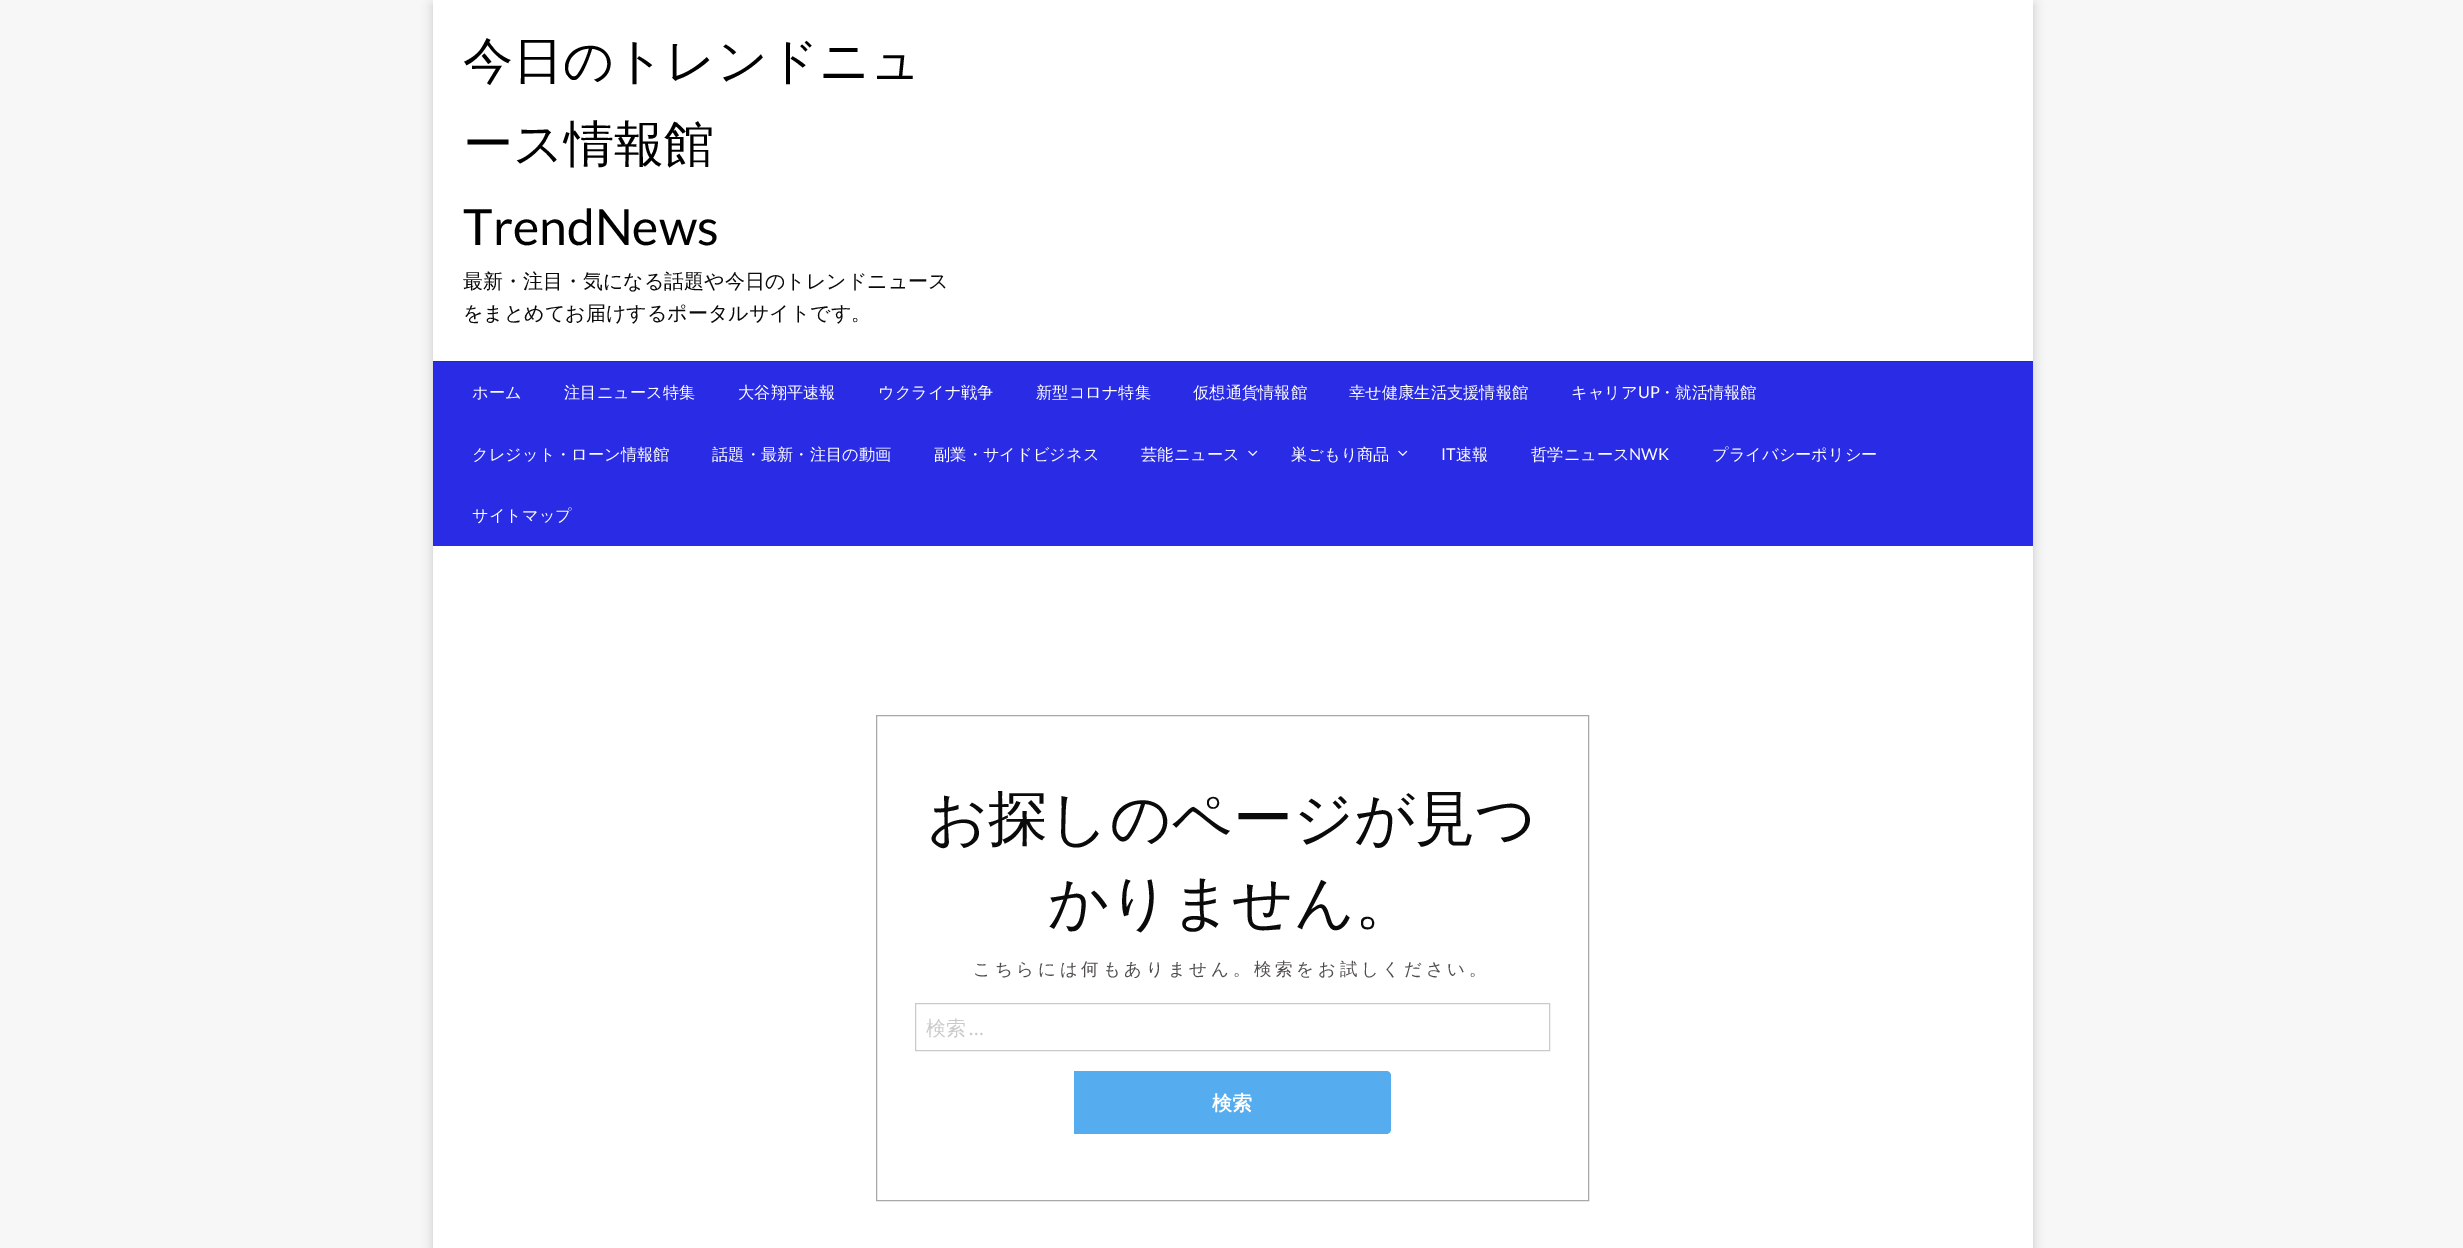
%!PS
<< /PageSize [2463 1248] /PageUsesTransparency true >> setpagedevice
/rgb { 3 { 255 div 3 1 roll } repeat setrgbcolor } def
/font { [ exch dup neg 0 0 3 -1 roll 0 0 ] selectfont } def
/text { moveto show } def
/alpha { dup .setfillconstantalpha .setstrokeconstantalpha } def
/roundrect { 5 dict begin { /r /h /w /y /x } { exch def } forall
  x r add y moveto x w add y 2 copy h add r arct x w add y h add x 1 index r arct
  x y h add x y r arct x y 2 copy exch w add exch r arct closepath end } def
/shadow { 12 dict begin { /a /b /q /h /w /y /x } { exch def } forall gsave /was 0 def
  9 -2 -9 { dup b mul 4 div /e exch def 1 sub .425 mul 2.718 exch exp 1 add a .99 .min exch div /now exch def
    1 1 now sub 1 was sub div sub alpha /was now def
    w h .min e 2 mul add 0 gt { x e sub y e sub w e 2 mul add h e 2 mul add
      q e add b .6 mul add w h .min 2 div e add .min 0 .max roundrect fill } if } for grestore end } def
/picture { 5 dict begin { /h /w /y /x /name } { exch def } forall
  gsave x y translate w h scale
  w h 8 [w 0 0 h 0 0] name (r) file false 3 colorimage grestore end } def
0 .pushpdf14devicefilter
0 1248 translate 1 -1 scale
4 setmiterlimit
247 247 247 rgb
0 0 2463 1248 rectfill
0 0 0 rgb
433 4 1600 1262 0 6 0.09 shadow
433 5 1600 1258 0 5 0.1 shadow
255 255 255 rgb
433 0 1600 361 rectfill
41 44 228 rgb
433 362 1600 184 rectfill
36 39 201 rgb
433 361 1600 1 rectfill
(img_01.rgb) 1248 450 10 6 picture
(img_01.rgb) 1398 450 10 6 picture
255 255 255 rgb
433 546 1600 702 rectfill
169 169 169 rgb
876.5 715.5 712 485 rectstroke
202 202 202 rgb
915.5 1003.5 634 47 rectstroke
85 172 238 rgb
1074 1071 moveto 312 0 rlineto 3 0 5 2 5 5 rcurveto 0 53 rlineto 0 3 -2 5 -5 5 rcurveto -312 0 rlineto closepath fill
/WenQuanYiZenHei-Medium 50 font
0 0 0 rgb
(今日のトレンドニュ) 463 78 text
(ース情報館) 463 161 text
/Lato-Regular 50 font
(TrendNews) 463 245 text
/WenQuanYiZenHei-Medium 20 font
10 10 10 rgb
(最新・注目・気になる話題や今日のトレンドニュース) 463 288 text
(をまとめてお届けするポータルサイトです。) 463 320 text
/WenQuanYiZenHei-Medium 16.25 font
255 255 255 rgb
(ホーム) 472 398 text
(注目ニュース特集) 564 398 text
(大谷翔平速報) 738 398 text
(ウクライナ戦争) 878 398 text
(新型コロナ特集) 1036 398 text
(仮想通貨情報館) 1193 398 text
(幸せ健康生活支援情報館) 1349 398 text
(キャリア) 1571 398 text
/Lato-Regular 16.25 font
(UP) 1638 398 text
/WenQuanYiZenHei-Medium 16.25 font
(・就活情報館) 1659 398 text
(クレジット・ローン情報館) 472 460 text
(話題・最新・注目の動画) 712 460 text
(副業・サイドビジネス) 934 460 text
(芸能ニュース) 1141 460 text
(巣ごもり商品) 1291 460 text
/Lato-Regular 16.25 font
(IT) 1441 460 text
/WenQuanYiZenHei-Medium 16.25 font
(速報) 1456 460 text
(哲学ニュース) 1531 460 text
/Lato-Regular 16.25 font
(NWK) 1629 460 text
/WenQuanYiZenHei-Medium 16.25 font
(プライバシーポリシー) 1712 460 text
(サイトマップ) 472 521 text
/WenQuanYiZenHei-Medium 60 font
10 10 10 rgb
(お探しのページが見つ) 927 839 text
(かりません。) 1048 923 text
/WenQuanYiZenHei-Medium 17.5 font
80 77 77 rgb
973 975 moveto 3.75 0 (こちらには何もありません。検索をお試しください。) ashow
/WenQuanYiZenHei-Medium 20 font
202 202 202 rgb
(検索) 926 1035 text
/Lato-Regular 20 font
(…) 969 1035 text
/WenQuanYiZenHei-Bold 20 font
255 255 255 rgb
(検索) 1212 1110 text
.poppdf14devicefilter showpage
